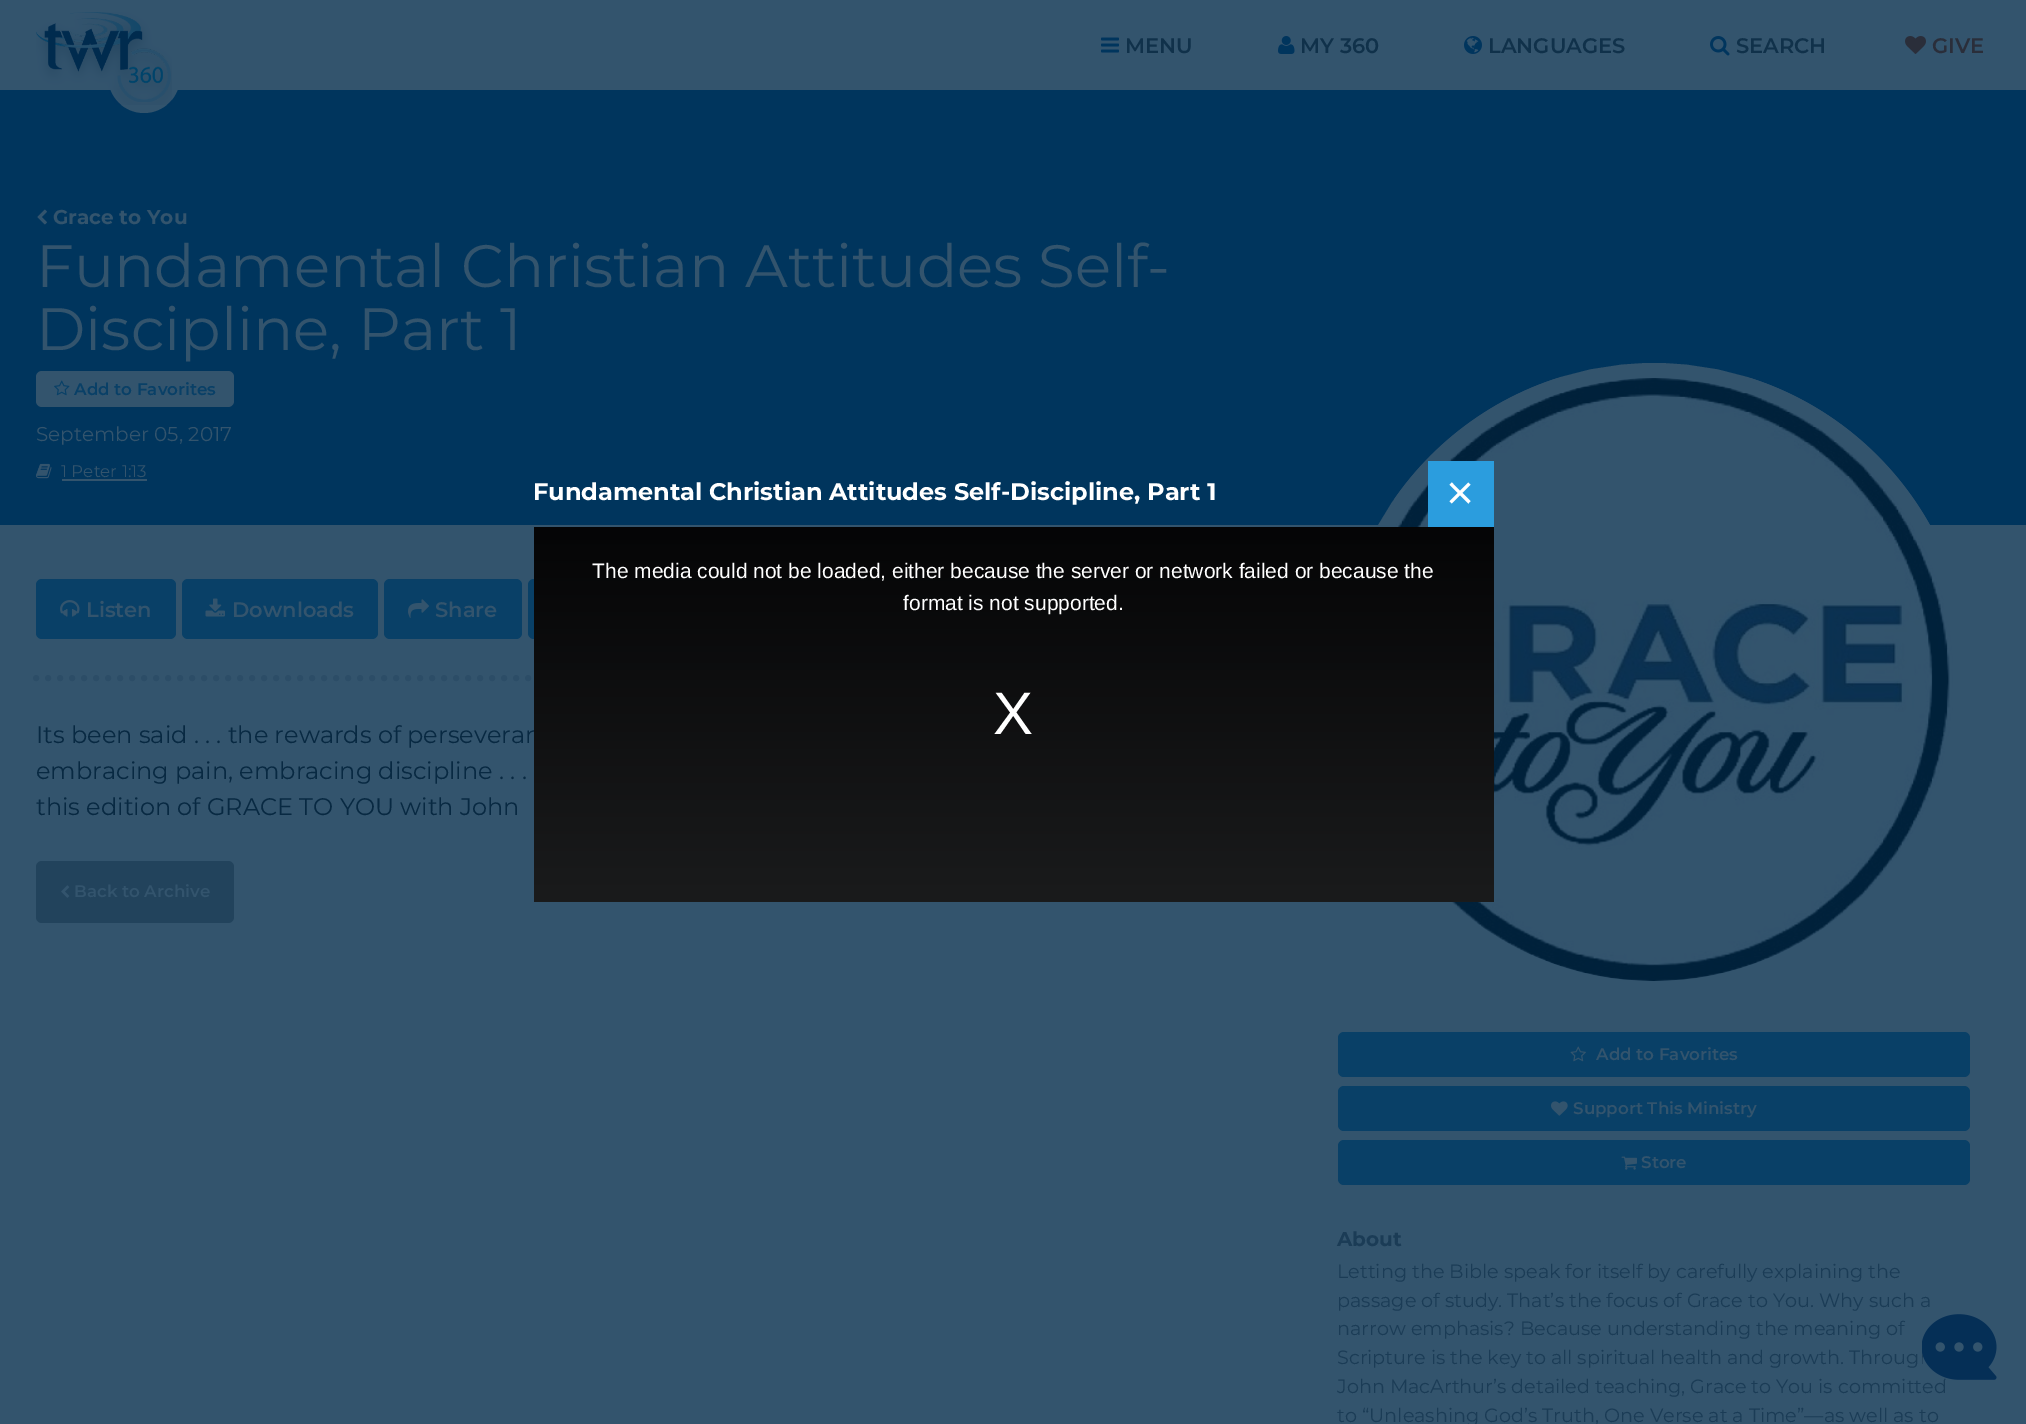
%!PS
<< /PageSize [2026 1424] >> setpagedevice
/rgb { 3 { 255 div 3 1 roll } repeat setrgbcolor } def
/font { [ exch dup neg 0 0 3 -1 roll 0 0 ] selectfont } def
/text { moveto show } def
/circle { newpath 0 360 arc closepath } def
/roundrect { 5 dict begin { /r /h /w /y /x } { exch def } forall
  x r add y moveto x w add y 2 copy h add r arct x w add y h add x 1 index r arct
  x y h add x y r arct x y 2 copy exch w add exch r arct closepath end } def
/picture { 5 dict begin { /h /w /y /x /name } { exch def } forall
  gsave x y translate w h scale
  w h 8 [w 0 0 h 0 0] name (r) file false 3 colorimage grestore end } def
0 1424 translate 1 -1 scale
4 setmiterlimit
51 84 109 rgb
0 0 2026 1424 rectfill
0 53 93 rgb
0 90 2026 435 rectfill
51 84 109 rgb
144 77 36 circle fill
(img_01.rgb) 36 12 136 93 picture
(img_02.rgb) 1101 37 18 16 picture
(img_03.rgb) 1278 36 17 18 picture
(img_04.rgb) 1464 36 18 18 picture
(img_05.rgb) 1710 36 20 20 picture
(img_06.rgb) 1905 36 21 18 picture
(img_07.rgb) 37 209 10 16 picture
36 371 198 36 6 roundrect fill
(img_08.rgb) 54 380 16 16 picture
(img_09.rgb) 36 463 16 16 picture
62 479 85 2 rectfill
44 77 103 rgb
6 setlinewidth
1 setlinecap
[0 12] 0 setdash
36 678 moveto 1266 0 rlineto stroke
9 64 103 rgb
36 579 140 60 6 roundrect fill
(img_10.rgb) 60 600 20 17 picture
182 579 196 60 6 roundrect fill
(img_11.rgb) 205 598 20 19 picture
384 579 138 60 6 roundrect fill
(img_12.rgb) 408 599 21 19 picture
528 579 155 60 6 roundrect fill
34 67 92 rgb
36 861 198 62 6 roundrect fill
(img_13.rgb) 61 885 9 13 picture
51 84 109 rgb
1345.5 370.5 617 618 308.5 roundrect gsave fill grestore
15 setlinewidth
0 setlinecap
[] 0 setdash
stroke
(img_14.rgb) 1394 378 559 603 picture
9 64 103 rgb
1338 1032 632 45 6 roundrect fill
(img_15.rgb) 1570 1046 16 16 picture
1338 1086 632 45 6 roundrect fill
(img_16.rgb) 1551 1101 17 15 picture
1338 1140 632 45 6 roundrect fill
(img_17.rgb) 1621 1156 16 14 picture
43 157 222 rgb
1428 461 66 66 rectfill
/Montserrat-SemiBold 21 font
16 49 74 rgb
(MENU) 1125 53 text
(MY 360) 1300 53 text
(LANGUAGES) 1488 53 text
(SEARCH) 1736 53 text
42 46 58 rgb
(GIVE) 1932 53 text
/Montserrat-Bold 20 font
51 84 109 rgb
(Grace to You) 53 224 text
/Montserrat-Regular 59.75 font
(Fundamental Christian Attitudes Self-) 36 287 text
(Discipline, Part 1) 36 350 text
/Montserrat-SemiBold 16.75 font
9 64 103 rgb
(Add to Favorites) 74 395 text
/Montserrat-Regular 20 font
51 84 109 rgb
(September 05, 2017) 36 441 text
/Montserrat-Regular 16.75 font
(1 Peter 1:13) 61 477 text
/Montserrat-SemiBold 21 font
(Listen) 86 617 text
(Downloads) 232 617 text
(Share) 435 617 text
/Montserrat-Regular 24 font
8 41 66 rgb
(Its been said . . . the rewards of perseveran) 36 743 text
(embracing pain, embracing discipline . . .) 36 779 text
(this edition of GRACE TO YOU with John) 36 815 text
/Montserrat-SemiBold 16.75 font
51 84 109 rgb
(Back to Archive) 74 897 text
(Add to Favorites) 1596 1060 text
(Support This Ministry) 1573 1114 text
(Store) 1641 1168 text
/Montserrat-Bold 20 font
27 60 86 rgb
(About) 1337 1246 text
/Montserrat-Regular 19.2 font
(Letting the Bible speak for itself by carefully explaining the) 1337 1278 text
(passage of study. That’s the focus of Grace to You. Why such a) 1337 1307 text
(narrow emphasis? Because understanding the meaning of) 1337 1335 text
(Scripture is the key to all spiritual health and growth. Throug) 1337 1364 text
(John MacArthur’s detailed teaching, Grace to You is committed) 1337 1393 text
(to “Unleashing God’s Truth, One Verse at a Time”—as well as to) 1337 1422 text
/Montserrat-Bold 24 font
255 255 255 rgb
(Fundamental Christian Attitudes Self-Discipline, Part 1) 533 500 text
/LiberationSans-Regular 48 font
(×) 1446 509 text
gsave 534 527 moveto 960 0 rlineto 0 375 rlineto -960 0 rlineto closepath clip newpath
<< /ShadingType 2 /ColorSpace /DeviceRGB /Coords [1014 526 1014 902] /Extend [true true] /Function << /FunctionType 2 /Domain [0 1] /C0 [0.02 0.02 0.024] /C1 [0.102 0.106 0.11] /N 1 >> >> shfill grestore
/LiberationSans-Regular 21 font
(The media could not be loaded, either because the server or network failed or because the) 592 578 text
(format is not supported.) 903 610 text
/LiberationSans-Regular 60 font
(X) 993 734 text
(img_18.rgb) 1922 1314 75 66 picture
showpage
